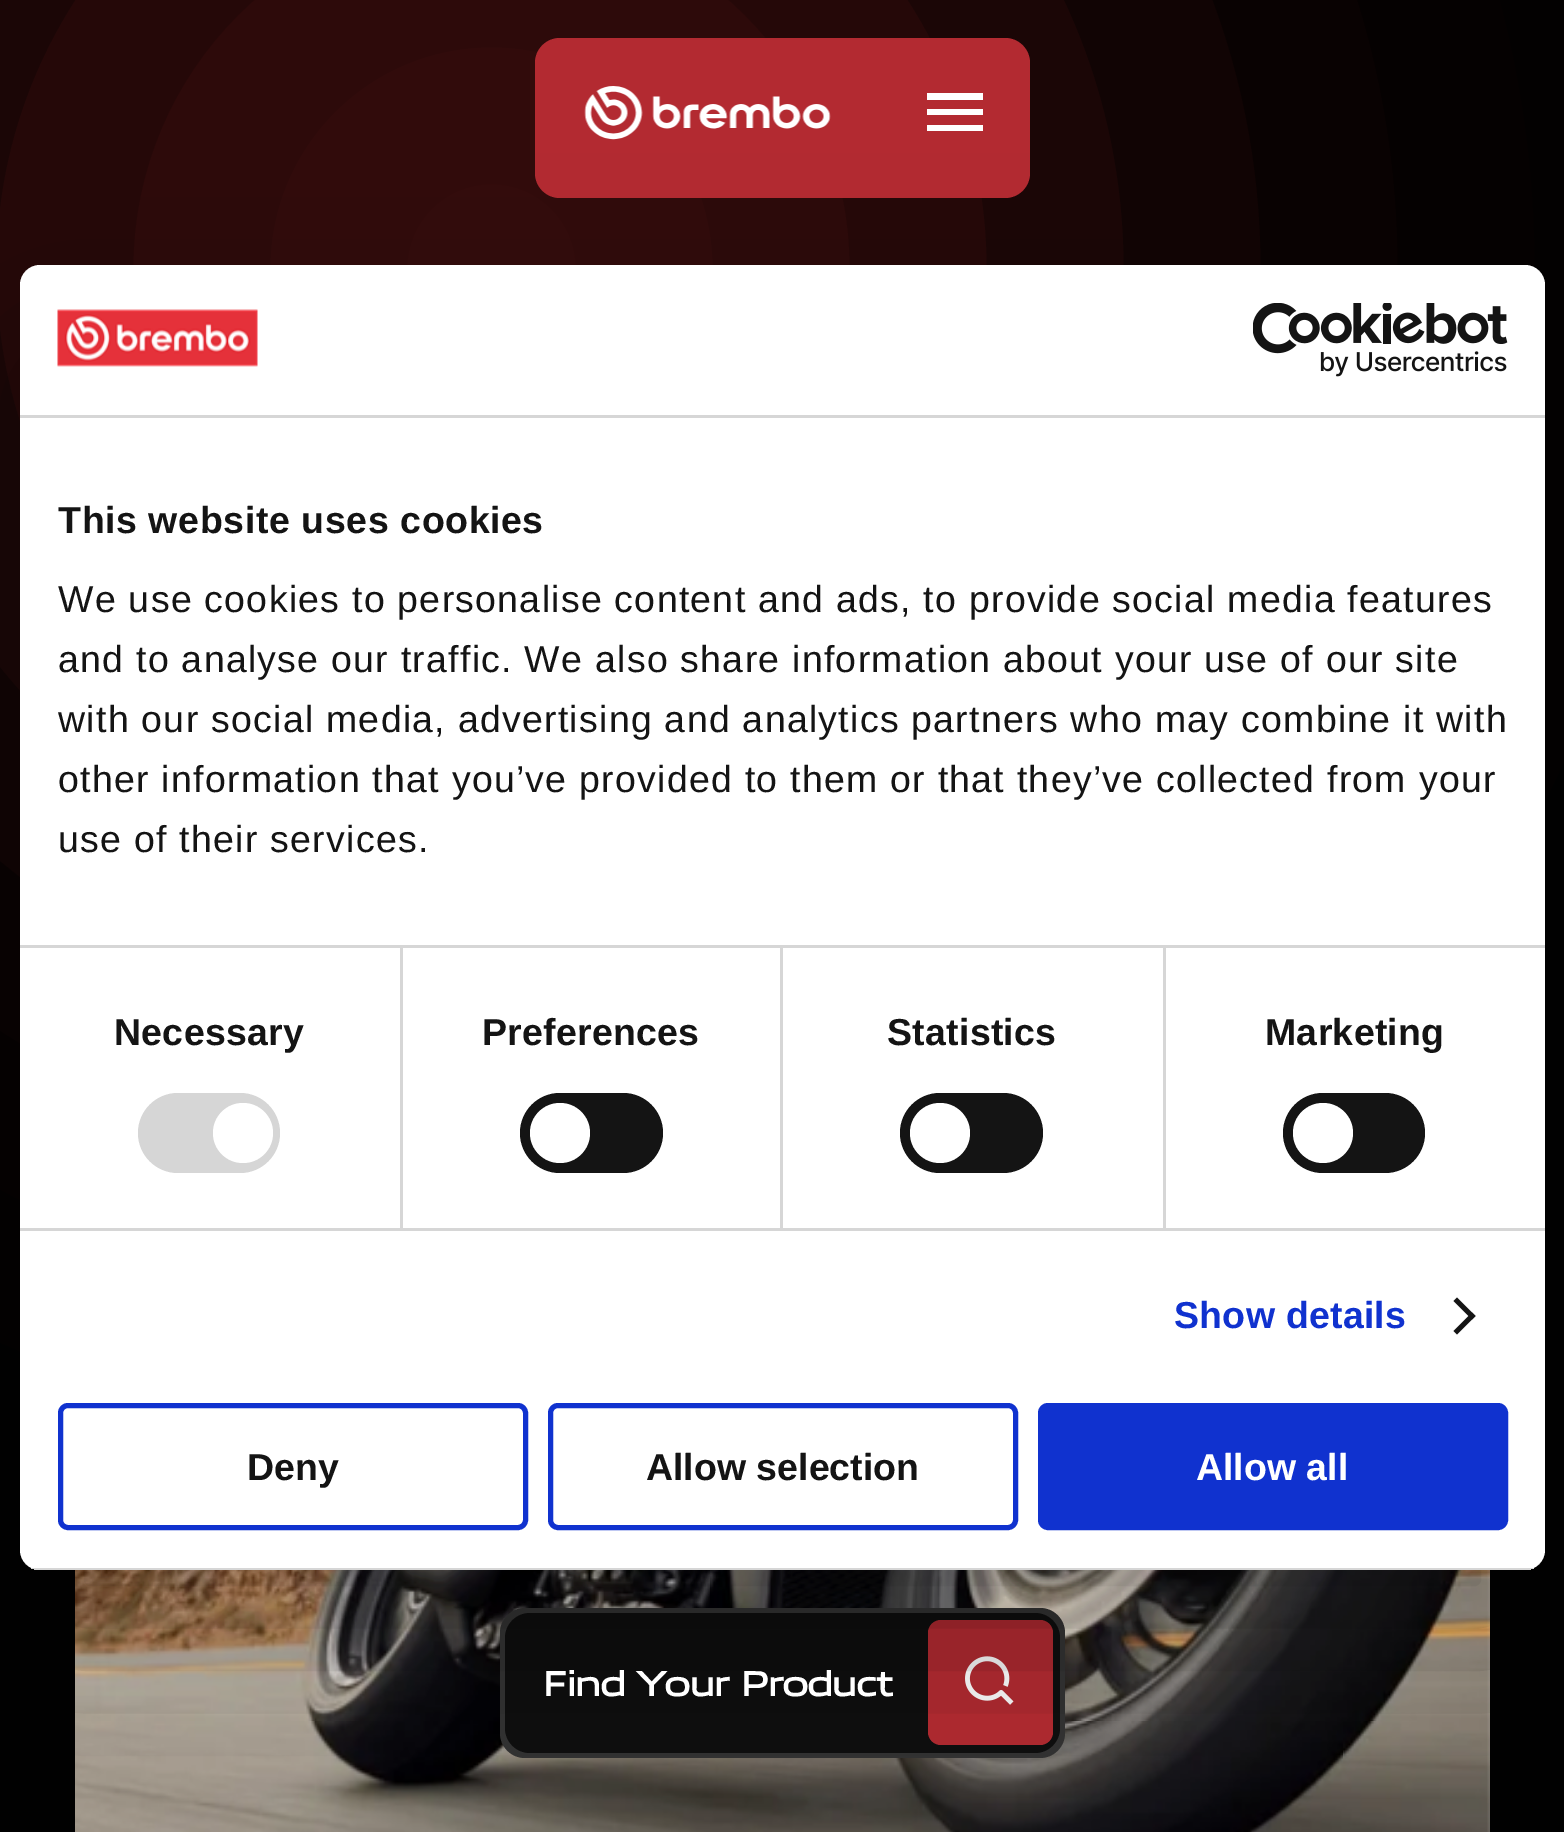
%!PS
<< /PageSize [1564 1832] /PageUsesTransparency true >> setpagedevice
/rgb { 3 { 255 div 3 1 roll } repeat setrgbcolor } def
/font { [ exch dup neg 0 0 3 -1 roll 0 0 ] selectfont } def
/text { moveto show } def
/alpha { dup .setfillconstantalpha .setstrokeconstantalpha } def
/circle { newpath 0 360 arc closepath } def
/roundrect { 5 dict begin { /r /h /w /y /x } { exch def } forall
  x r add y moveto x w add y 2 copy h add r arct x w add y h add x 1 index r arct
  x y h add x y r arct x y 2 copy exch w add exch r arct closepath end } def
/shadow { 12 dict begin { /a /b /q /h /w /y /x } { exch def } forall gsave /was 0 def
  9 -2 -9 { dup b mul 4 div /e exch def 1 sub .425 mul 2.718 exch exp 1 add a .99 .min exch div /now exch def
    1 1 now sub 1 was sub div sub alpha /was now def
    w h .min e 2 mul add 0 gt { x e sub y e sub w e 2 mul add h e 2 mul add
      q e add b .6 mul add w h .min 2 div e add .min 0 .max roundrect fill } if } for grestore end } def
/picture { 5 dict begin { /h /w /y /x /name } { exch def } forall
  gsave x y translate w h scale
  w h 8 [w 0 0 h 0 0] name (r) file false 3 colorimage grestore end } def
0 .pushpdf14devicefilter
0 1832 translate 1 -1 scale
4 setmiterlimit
1 1 1 rgb
0 0 1564 1832 rectfill
255 54 54 rgb
-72 -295 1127 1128 563.5 274 0.2 shadow
(img_03.rgb) 75 1570 1415 262 picture
179 42 49 rgb
535 38 495 160 25 roundrect fill
(img_04.rgb) 584 86 247 54 picture
255 255 255 rgb
927 131 moveto 0 -6 rlineto 56 0 rlineto 0 6 rlineto closepath 927 115 moveto 0 -6 rlineto 56 0 rlineto 0 6 rlineto closepath 927 100 moveto 0 -7 rlineto 56 0 rlineto 0 7 rlineto closepath fill
51 51 51 rgb
500 1608 565 150 25 roundrect fill
14 14 14 rgb
505 1613 555 140 25 roundrect fill
179 42 49 rgb
928 1620 125 125 13 roundrect fill
(img_05.rgb) 965 1656 49 49 picture
0 0 0 rgb
20 345 1525 1305 20 85 0.3 shadow
255 255 255 rgb
20 265 1525 1305 20 roundrect fill
214 214 214 rgb
20 415 1525 3 rectfill
(img_01.rgb) 57 309 201 58 picture
(img_02.rgb) 1253 303 255 74 picture
20 945 1525 3 rectfill
20 1228 1525 3 rectfill
400 948 3 280 rectfill
138 1093 142 80 40 roundrect fill
255 255 255 rgb
243 1133 30 circle fill
214 214 214 rgb
780 948 3 280 rectfill
20 20 20 rgb
520 1093 143 80 40 roundrect fill
255 255 255 rgb
560 1133 30 circle fill
214 214 214 rgb
1163 948 3 280 rectfill
20 20 20 rgb
900 1093 143 80 40 roundrect fill
255 255 255 rgb
940 1133 30 circle fill
20 20 20 rgb
1283 1093 142 80 40 roundrect fill
255 255 255 rgb
1323 1133 30 circle fill
20 20 20 rgb
1457 1297.5 moveto 18.5 18.5 rlineto -3.5 3.5 rlineto -18.5 -18.5 rlineto closepath fill
1472 1312.5 moveto 3.5 3.5 rlineto -18.5 18.5 rlineto -3.5 -3.5 rlineto closepath fill
gsave
20 265 1525 1305 20 roundrect clip newpath
214 214 214 rgb
31 1568 1503 2 rectfill
grestore
16 50 207 rgb
5 setlinewidth
60.5 1405.5 465 122 7.5 roundrect stroke
550.5 1405.5 465 122 7.5 roundrect stroke
1040.5 1405.5 465 122 7.5 roundrect gsave fill grestore
stroke
/LiberationSans-Bold 37.5 font
20 20 20 rgb
58 533 moveto 0.6 0 (This website uses cookies) ashow
/LiberationSans-Regular 37.5 font
58 612 moveto 1.25 0 (We use cookies to personalise content and ads, to provide social media features) ashow
58 672 moveto 1.25 0 (and to analyse our traffic. We also share information about your use of our site) ashow
58 732 moveto 1.25 0 (with our social media, advertising and analytics partners who may combine it with) ashow
58 792 moveto 1.25 0 (other information that you’ve provided to them or that they’ve collected from your) ashow
58 852 moveto 1.25 0 (use of their services.) ashow
/LiberationSans-Bold 37.5 font
114 1045 moveto 0.25 0 (Necessary) ashow
482 1045 moveto 0.25 0 (Preferences) ashow
887 1045 moveto 0.25 0 (Statistics) ashow
1265 1045 moveto 0.25 0 (Marketing) ashow
16 50 207 rgb
1174 1328 moveto 0.25 0 (Show details) ashow
20 20 20 rgb
(Deny) 247 1480 text
(Allow selection) 646 1480 text
255 255 255 rgb
(Allow all) 1196 1480 text
/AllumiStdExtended-Bold 35 font
542 1696 moveto -1.75 0 (Find Your Product) ashow
.poppdf14devicefilter showpage
